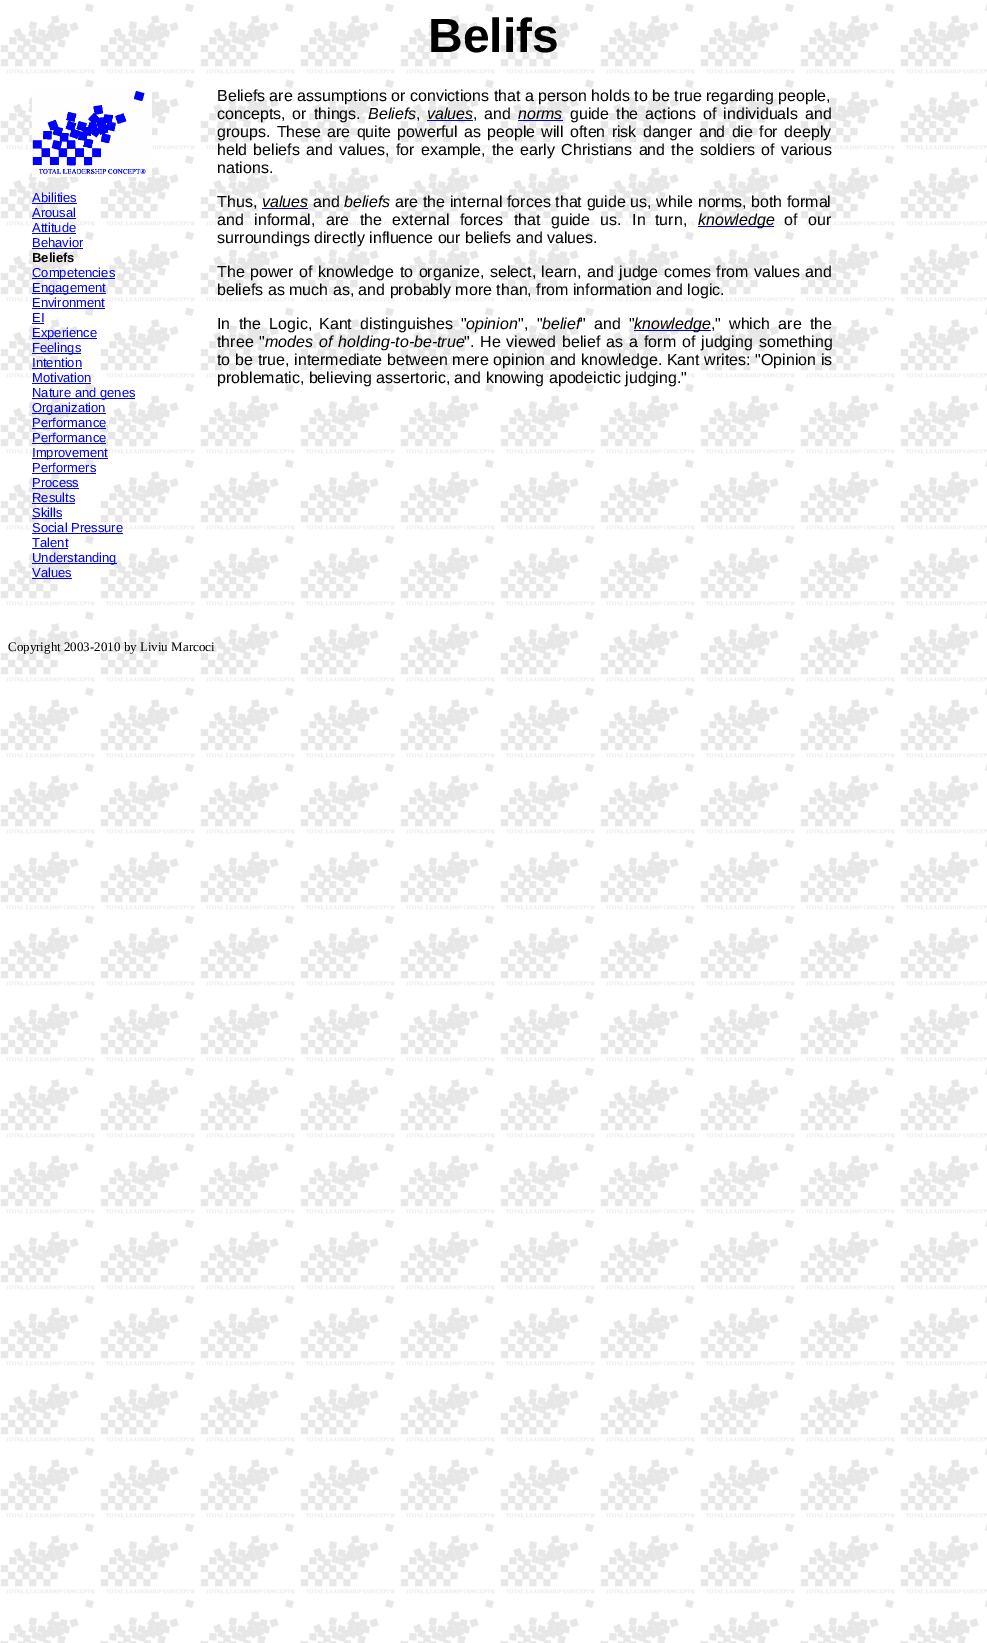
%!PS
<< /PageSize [987 1643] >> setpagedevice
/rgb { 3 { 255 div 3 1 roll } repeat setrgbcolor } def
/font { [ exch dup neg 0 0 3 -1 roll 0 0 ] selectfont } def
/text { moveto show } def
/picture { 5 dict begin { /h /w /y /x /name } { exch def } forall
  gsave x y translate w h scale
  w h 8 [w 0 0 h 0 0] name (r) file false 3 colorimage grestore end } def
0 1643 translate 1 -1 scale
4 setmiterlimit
255 255 255 rgb
0 0 987 1643 rectfill
(img_01.rgb) 0 3 987 1640 picture
(img_02.rgb) 32 87 120 90 picture
0 0 238 rgb
32 203 45 1 rectfill
32 218 44 1 rectfill
32 233 44 1 rectfill
32 248 51 1 rectfill
32 278 83 1 rectfill
32 293 74 1 rectfill
32 308 73 1 rectfill
32 323 12 1 rectfill
32 338 65 1 rectfill
32 353 49 1 rectfill
32 368 50 1 rectfill
32 383 59 1 rectfill
32 398 103 1 rectfill
32 413 74 1 rectfill
32 428 74 1 rectfill
32 443 74 1 rectfill
32 458 76 1 rectfill
32 473 64 1 rectfill
32 488 47 1 rectfill
32 503 43 1 rectfill
32 518 30 1 rectfill
32 533 91 1 rectfill
32 548 36 1 rectfill
32 563 85 1 rectfill
32 578 40 1 rectfill
427 120 46 1 rectfill
518 120 45 1 rectfill
262 208 46 1 rectfill
698 226 76 1 rectfill
634 330 77 1 rectfill
/LiberationSans-Bold 48 font
0 0 0 rgb
(Belifs) 428 52 text
/LiberationSans-Regular 13 font
0 0 238 rgb
(Abilities) 32 202 text
(Arousal) 32 217 text
(Attitude) 32 232 text
(Behavior) 32 247 text
/LiberationSans-Bold 13 font
0 0 0 rgb
(Beliefs) 32 262 text
/LiberationSans-Regular 13 font
0 0 238 rgb
(Competencies) 32 277 text
(Engagement) 32 292 text
(Environment) 32 307 text
(EI) 32 322 text
(Experience) 32 337 text
(Feelings) 32 352 text
(Intention) 32 367 text
(Motivation) 32 382 text
(Nature and genes) 32 397 text
(Organization) 32 412 text
(Performance) 32 427 text
(Performance) 32 442 text
(Improvement) 32 457 text
(Performers) 32 472 text
(Process) 32 487 text
(Results) 32 502 text
(Skills) 32 517 text
(Social Pressure) 32 532 text
(Talent) 32 547 text
(Understanding) 32 562 text
(Values) 32 577 text
/LiberationSans-Regular 16 font
0 0 0 rgb
(Beliefs are assumptions or convictions that a person holds to be true regarding people,) 217 101 text
217 119 moveto 2.5 0 32 (concepts, or things.) widthshow
/LiberationSans-Italic 16 font
(Beliefs) 368 119 text
/LiberationSans-Regular 16 font
(,) 416 119 text
/LiberationSans-Italic 16 font
(values) 427 119 text
/LiberationSans-Regular 16 font
473 119 moveto 2.5 0 32 (, and) widthshow
/LiberationSans-Italic 16 font
(norms) 518 119 text
/LiberationSans-Regular 16 font
570 119 moveto 2.5 0 32 (guide the actions of individuals and) widthshow
217 137 moveto 1.75 0 32 (groups. These are quite powerful) widthshow
464 137 moveto 1.75 0 32 (as people will often risk danger and die for deeply) widthshow
217 155 moveto 1.75 0 32 (held beliefs and) widthshow
339 155 moveto 1.75 0 32 (values, for example, the early Christians and the soldiers of various) widthshow
(nations.) 217 173 text
(Thus,) 217 207 text
/LiberationSans-Italic 16 font
(values) 262 207 text
/LiberationSans-Regular 16 font
(and) 313 207 text
/LiberationSans-Italic 16 font
(beliefs) 344 207 text
/LiberationSans-Regular 16 font
395 207 moveto 0.25 0 32 (are the internal forces that guide us, while norms,) widthshow
(both formal) 751 207 text
217 225 moveto 6 0 32 (and informal, are the external forces that guide us. In) widthshow
(turn,) 655 225 text
/LiberationSans-Italic 16 font
(knowledge) 698 225 text
/LiberationSans-Regular 16 font
784 225 moveto 6 0 32 (of our) widthshow
(surroundings directly influence our beliefs and values.) 217 243 text
217 277 moveto 1 0 32 (The power) widthshow
299 277 moveto 1 0 32 (of knowledge to organize, select, learn, and judge comes from values) widthshow
(and) 805 277 text
(beliefs as much as, and probably more than, from information and logic.) 217 295 text
217 329 moveto 4 0 32 (In the Logic,) widthshow
319 329 moveto 4 0 32 (Kant distinguishes ") widthshow
/LiberationSans-Italic 16 font
(opinion) 466 329 text
/LiberationSans-Regular 16 font
518 329 moveto 4 0 32 (", ") widthshow
/LiberationSans-Italic 16 font
(belief) 542 329 text
/LiberationSans-Regular 16 font
580 329 moveto 4 0 32 (" and ") widthshow
/LiberationSans-Italic 16 font
(knowledge) 634 329 text
/LiberationSans-Regular 16 font
(,") 711 329 text
729 329 moveto 4 0 32 (which are the) widthshow
217 347 moveto 1.5 0 32 (three ") widthshow
/LiberationSans-Italic 16 font
265 347 moveto 1.5 0 32 (modes of holding-to-be-true) widthshow
/LiberationSans-Regular 16 font
464 347 moveto 1.5 0 32 (". He viewed) widthshow
562 347 moveto 1.5 0 32 (belief as a form of judging something) widthshow
217 365 moveto 0.25 0 32 (to be true, intermediate between mere opinion and knowledge. Kant writes: "Opinion is) widthshow
(problematic, believing assertoric, and knowing apodeictic judging.") 217 383 text
/LiberationSerif-Regular 13 font
(Copyright 2003-2010 by Liviu Marcoci) 8 651 text
showpage
